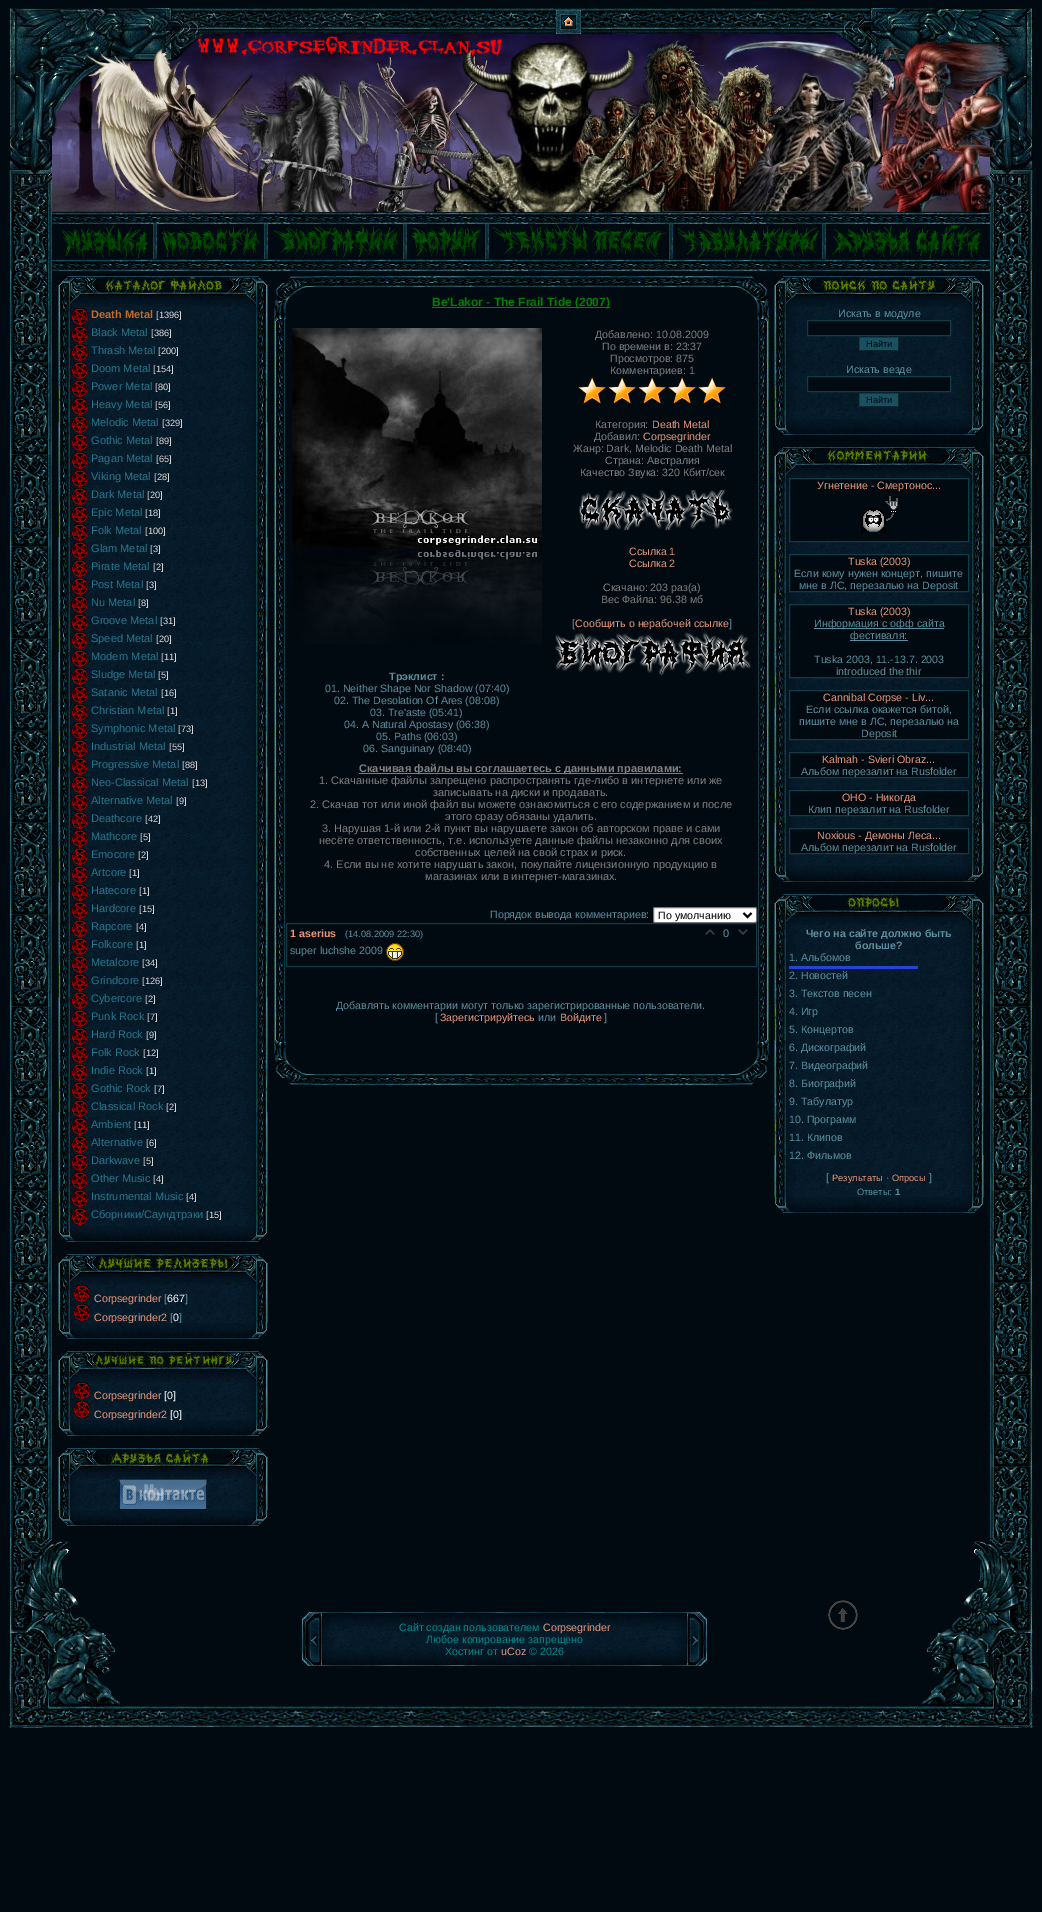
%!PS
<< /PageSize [1042 1912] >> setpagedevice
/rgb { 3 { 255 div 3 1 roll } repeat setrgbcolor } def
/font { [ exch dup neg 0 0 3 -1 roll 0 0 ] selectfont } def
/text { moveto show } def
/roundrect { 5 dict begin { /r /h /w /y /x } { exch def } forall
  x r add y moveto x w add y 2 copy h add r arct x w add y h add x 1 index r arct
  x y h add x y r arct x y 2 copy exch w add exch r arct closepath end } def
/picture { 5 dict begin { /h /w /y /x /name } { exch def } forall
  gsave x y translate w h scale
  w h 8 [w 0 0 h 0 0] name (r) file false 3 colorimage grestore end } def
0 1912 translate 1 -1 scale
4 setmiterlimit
1 10 17 rgb
0 0 1042 1912 rectfill
(img_01.rgb) 9 8 357 26 picture
(img_02.rgb) 366 8 424 26 picture
(img_03.rgb) 556 10 25 24 picture
(img_04.rgb) 790 8 243 26 picture
(img_05.rgb) 9 34 1024 178 picture
(img_06.rgb) 9 212 43 59 picture
(img_07.rgb) 52 212 938 12 picture
(img_08.rgb) 62 224 95 35 picture
(img_09.rgb) 161 224 107 35 picture
(img_10.rgb) 273 224 134 35 picture
(img_11.rgb) 411 224 78 35 picture
(img_12.rgb) 492 224 181 35 picture
(img_13.rgb) 677 224 149 35 picture
(img_14.rgb) 832 225 150 34 picture
(img_07.rgb) 52 259 938 12 picture
(img_15.rgb) 990 212 43 59 picture
(img_16.rgb) 9 271 43 1267 picture
(img_17.rgb) 58 276 210 31 picture
(img_18.rgb) 58 307 210 919 picture
(img_19.rgb) 72 308 16 17 picture
(img_20.rgb) 72 326 16 17 picture
(img_21.rgb) 72 344 16 17 picture
(img_22.rgb) 72 362 16 17 picture
(img_23.rgb) 72 380 16 17 picture
(img_24.rgb) 72 398 16 17 picture
(img_25.rgb) 72 416 16 17 picture
(img_26.rgb) 72 434 16 17 picture
(img_27.rgb) 72 452 16 17 picture
(img_28.rgb) 72 470 16 17 picture
(img_29.rgb) 72 488 16 17 picture
(img_30.rgb) 72 506 16 17 picture
(img_31.rgb) 72 524 16 17 picture
(img_32.rgb) 72 542 16 17 picture
(img_33.rgb) 72 560 16 17 picture
(img_34.rgb) 72 578 16 17 picture
(img_35.rgb) 72 596 16 17 picture
(img_36.rgb) 72 614 16 17 picture
(img_37.rgb) 72 632 16 17 picture
(img_38.rgb) 72 650 16 17 picture
(img_39.rgb) 72 668 16 17 picture
(img_40.rgb) 72 686 16 17 picture
(img_41.rgb) 72 704 16 17 picture
(img_42.rgb) 72 722 16 17 picture
(img_43.rgb) 72 740 16 17 picture
(img_44.rgb) 72 758 16 17 picture
(img_45.rgb) 72 776 16 17 picture
(img_46.rgb) 72 794 16 17 picture
(img_47.rgb) 72 812 16 17 picture
(img_48.rgb) 72 830 16 17 picture
(img_49.rgb) 72 848 16 17 picture
(img_50.rgb) 72 866 16 17 picture
(img_51.rgb) 72 884 16 17 picture
(img_52.rgb) 72 902 16 17 picture
(img_53.rgb) 72 920 16 17 picture
(img_54.rgb) 72 938 16 17 picture
(img_55.rgb) 72 956 16 17 picture
(img_56.rgb) 72 974 16 17 picture
(img_57.rgb) 72 992 16 17 picture
(img_58.rgb) 72 1010 16 17 picture
(img_59.rgb) 72 1028 16 17 picture
(img_60.rgb) 72 1046 16 17 picture
(img_61.rgb) 72 1064 16 17 picture
(img_62.rgb) 72 1082 16 17 picture
(img_63.rgb) 72 1100 16 17 picture
(img_64.rgb) 72 1118 16 17 picture
(img_65.rgb) 72 1136 16 17 picture
(img_66.rgb) 72 1154 16 17 picture
(img_67.rgb) 72 1172 16 17 picture
(img_68.rgb) 72 1190 16 17 picture
(img_69.rgb) 72 1208 16 17 picture
(img_70.rgb) 58 1226 210 16 picture
(img_71.rgb) 58 1254 210 31 picture
(img_72.rgb) 58 1285 210 38 picture
(img_73.rgb) 74 1285 16 17 picture
(img_74.rgb) 74 1304 16 17 picture
(img_75.rgb) 58 1351 210 31 picture
(img_72.rgb) 58 1382 210 38 picture
(img_73.rgb) 74 1382 16 17 picture
(img_74.rgb) 74 1401 16 17 picture
(img_76.rgb) 58 1448 210 31 picture
(img_77.rgb) 58 1479 210 31 picture
(img_78.rgb) 119 1479 88 31 picture
(img_70.rgb) 58 1510 210 16 picture
(img_79.rgb) 274 276 495 52 picture
0 128 0 rgb
432 307 178 1 rectfill
(img_80.rgb) 274 328 11 705 picture
(img_81.rgb) 578 377 148 27 picture
(img_82.rgb) 578 377 148 27 picture
(img_83.rgb) 579 490 154 40 picture
(img_84.rgb) 555 632 196 44 picture
(img_85.rgb) 292 328 250 220 picture
(img_86.rgb) 292 548 250 96 picture
128 128 128 rgb
359 773 324 1 rectfill
255 255 255 rgb
653.5 907.5 103 15 1.5 roundrect gsave fill grestore
118 118 118 rgb
stroke
0 0 0 rgb
2 setlinewidth
743.5 913 moveto 4 4 rlineto 4 -4 rlineto stroke
19 58 69 rgb
1 setlinewidth
286.5 923.5 470 43 rectstroke
(img_87.rgb) 705 929 10 6 picture
(img_88.rgb) 738 929 10 6 picture
(img_89.rgb) 386 943 18 18 picture
(img_90.rgb) 758 328 11 705 picture
(img_91.rgb) 274 1033 495 52 picture
(img_92.rgb) 774 276 210 31 picture
(img_93.rgb) 774 307 210 112 picture
1 10 17 rgb
807.5 320.5 moveto 143 0 rlineto 0 15 rlineto -143 0 rlineto closepath gsave fill grestore
19 58 69 rgb
stroke
26 81 96 rgb
860 338 38 12 rectfill
19 58 69 rgb
859 337 40 1 rectfill
13 39 46 rgb
898 337 1 14 rectfill
859 350 40 1 rectfill
19 58 69 rgb
859 337 1 14 rectfill
1 10 17 rgb
807.5 376.5 moveto 143 0 rlineto 0 15 rlineto -143 0 rlineto closepath gsave fill grestore
19 58 69 rgb
stroke
26 81 96 rgb
860 394 38 12 rectfill
19 58 69 rgb
859 393 40 1 rectfill
13 39 46 rgb
898 393 1 14 rectfill
859 406 40 1 rectfill
19 58 69 rgb
859 393 1 14 rectfill
(img_70.rgb) 774 419 210 16 picture
(img_94.rgb) 774 447 210 31 picture
(img_95.rgb) 774 478 210 388 picture
1 10 17 rgb
789.5 478.5 moveto 179 0 rlineto 0 63 rlineto -179 0 rlineto closepath gsave fill grestore
19 58 69 rgb
stroke
(img_96.rgb) 861 496 37 38 picture
1 10 17 rgb
789.5 554.5 moveto 179 0 rlineto 0 37 rlineto -179 0 rlineto closepath gsave fill grestore
19 58 69 rgb
stroke
1 10 17 rgb
789.5 604.5 moveto 179 0 rlineto 0 73 rlineto -179 0 rlineto closepath gsave fill grestore
19 58 69 rgb
stroke
92 144 160 rgb
814 628 130 1 rectfill
850 640 58 1 rectfill
1 10 17 rgb
789.5 690.5 moveto 179 0 rlineto 0 49 rlineto -179 0 rlineto closepath gsave fill grestore
19 58 69 rgb
stroke
1 10 17 rgb
789.5 752.5 moveto 179 0 rlineto 0 25 rlineto -179 0 rlineto closepath gsave fill grestore
19 58 69 rgb
stroke
1 10 17 rgb
789.5 790.5 moveto 179 0 rlineto 0 25 rlineto -179 0 rlineto closepath gsave fill grestore
19 58 69 rgb
stroke
1 10 17 rgb
789.5 828.5 moveto 179 0 rlineto 0 25 rlineto -179 0 rlineto closepath gsave fill grestore
19 58 69 rgb
stroke
(img_70.rgb) 774 866 210 16 picture
(img_97.rgb) 774 894 210 31 picture
(img_98.rgb) 774 925 210 272 picture
33 68 218 rgb
789 966 129 3 rectfill
(img_70.rgb) 774 1197 210 16 picture
(img_99.rgb) 990 271 43 1267 picture
(img_100.rgb) 184 1706 674 22 picture
(img_101.rgb) 9 1538 175 190 picture
(img_102.rgb) 828 1600 30 30 picture
(img_103.rgb) 302 1612 45 54 picture
(img_104.rgb) 347 1612 315 54 picture
(img_105.rgb) 662 1612 45 54 picture
(img_106.rgb) 858 1538 175 190 picture
/LiberationSans-Regular 10.65 font
0 0 0 rgb
(.) 9 127 text
/LiberationSans-Bold 11 font
193 106 41 rgb
(Death Metal) 91 318 text
/LiberationSans-Regular 9.25 font
216 213 213 rgb
([1396]) 156 318 text
/LiberationSans-Regular 11 font
39 119 141 rgb
(Black Metal) 91 336 text
/LiberationSans-Regular 9.25 font
216 213 213 rgb
([386]) 151 336 text
/LiberationSans-Regular 11 font
39 119 141 rgb
(Thrash Metal) 91 354 text
/LiberationSans-Regular 9.25 font
216 213 213 rgb
([200]) 158 354 text
/LiberationSans-Regular 11 font
39 119 141 rgb
(Doom Metal) 91 372 text
/LiberationSans-Regular 9.25 font
216 213 213 rgb
([154]) 153 372 text
/LiberationSans-Regular 11 font
39 119 141 rgb
(Power Metal) 91 390 text
/LiberationSans-Regular 9.25 font
216 213 213 rgb
([80]) 155 390 text
/LiberationSans-Regular 11 font
39 119 141 rgb
(Heavy Metal) 91 408 text
/LiberationSans-Regular 9.25 font
216 213 213 rgb
([56]) 155 408 text
/LiberationSans-Regular 11 font
39 119 141 rgb
(Melodic Metal) 91 426 text
/LiberationSans-Regular 9.25 font
216 213 213 rgb
([329]) 162 426 text
/LiberationSans-Regular 11 font
39 119 141 rgb
(Gothic Metal) 91 444 text
/LiberationSans-Regular 9.25 font
216 213 213 rgb
([89]) 156 444 text
/LiberationSans-Regular 11 font
39 119 141 rgb
(Pagan Metal) 91 462 text
/LiberationSans-Regular 9.25 font
216 213 213 rgb
([65]) 156 462 text
/LiberationSans-Regular 11 font
39 119 141 rgb
(Viking Metal) 91 480 text
/LiberationSans-Regular 9.25 font
216 213 213 rgb
([28]) 154 480 text
/LiberationSans-Regular 11 font
39 119 141 rgb
(Dark Metal) 91 498 text
/LiberationSans-Regular 9.25 font
216 213 213 rgb
([20]) 147 498 text
/LiberationSans-Regular 11 font
39 119 141 rgb
(Epic Metal) 91 516 text
/LiberationSans-Regular 9.25 font
216 213 213 rgb
([18]) 145 516 text
/LiberationSans-Regular 11 font
39 119 141 rgb
(Folk Metal) 91 534 text
/LiberationSans-Regular 9.25 font
216 213 213 rgb
([100]) 145 534 text
/LiberationSans-Regular 11 font
39 119 141 rgb
(Glam Metal) 91 552 text
/LiberationSans-Regular 9.25 font
216 213 213 rgb
([3]) 150 552 text
/LiberationSans-Regular 11 font
39 119 141 rgb
(Pirate Metal) 91 570 text
/LiberationSans-Regular 9.25 font
216 213 213 rgb
([2]) 153 570 text
/LiberationSans-Regular 11 font
39 119 141 rgb
(Post Metal) 91 588 text
/LiberationSans-Regular 9.25 font
216 213 213 rgb
([3]) 146 588 text
/LiberationSans-Regular 11 font
39 119 141 rgb
(Nu Metal) 91 606 text
/LiberationSans-Regular 9.25 font
216 213 213 rgb
([8]) 138 606 text
/LiberationSans-Regular 11 font
39 119 141 rgb
(Groove Metal) 91 624 text
/LiberationSans-Regular 9.25 font
216 213 213 rgb
([31]) 160 624 text
/LiberationSans-Regular 11 font
39 119 141 rgb
(Speed Metal) 91 642 text
/LiberationSans-Regular 9.25 font
216 213 213 rgb
([20]) 156 642 text
/LiberationSans-Regular 11 font
39 119 141 rgb
(Modern Metal) 91 660 text
/LiberationSans-Regular 9.25 font
216 213 213 rgb
([11]) 161 660 text
/LiberationSans-Regular 11 font
39 119 141 rgb
(Sludge Metal) 91 678 text
/LiberationSans-Regular 9.25 font
216 213 213 rgb
([5]) 158 678 text
/LiberationSans-Regular 11 font
39 119 141 rgb
(Satanic Metal) 91 696 text
/LiberationSans-Regular 9.25 font
216 213 213 rgb
([16]) 161 696 text
/LiberationSans-Regular 11 font
39 119 141 rgb
(Christian Metal) 91 714 text
/LiberationSans-Regular 9.25 font
216 213 213 rgb
([1]) 167 714 text
/LiberationSans-Regular 11 font
39 119 141 rgb
(Symphonic Metal) 91 732 text
/LiberationSans-Regular 9.25 font
216 213 213 rgb
([73]) 178 732 text
/LiberationSans-Regular 11 font
39 119 141 rgb
(Industrial Metal) 91 750 text
/LiberationSans-Regular 9.25 font
216 213 213 rgb
([55]) 169 750 text
/LiberationSans-Regular 11 font
39 119 141 rgb
(Progressive Metal) 91 768 text
/LiberationSans-Regular 9.25 font
216 213 213 rgb
([88]) 182 768 text
/LiberationSans-Regular 11 font
39 119 141 rgb
(Neo-Classical Metal) 91 786 text
/LiberationSans-Regular 9.25 font
216 213 213 rgb
([13]) 192 786 text
/LiberationSans-Regular 11 font
39 119 141 rgb
(Alternative Metal) 91 804 text
/LiberationSans-Regular 9.25 font
216 213 213 rgb
([9]) 176 804 text
/LiberationSans-Regular 11 font
39 119 141 rgb
(Deathcore) 91 822 text
/LiberationSans-Regular 9.25 font
216 213 213 rgb
([42]) 145 822 text
/LiberationSans-Regular 11 font
39 119 141 rgb
(Mathcore) 91 840 text
/LiberationSans-Regular 9.25 font
216 213 213 rgb
([5]) 140 840 text
/LiberationSans-Regular 11 font
39 119 141 rgb
(Emocore) 91 858 text
/LiberationSans-Regular 9.25 font
216 213 213 rgb
([2]) 138 858 text
/LiberationSans-Regular 11 font
39 119 141 rgb
(Artcore) 91 876 text
/LiberationSans-Regular 9.25 font
216 213 213 rgb
([1]) 129 876 text
/LiberationSans-Regular 11 font
39 119 141 rgb
(Hatecore) 91 894 text
/LiberationSans-Regular 9.25 font
216 213 213 rgb
([1]) 139 894 text
/LiberationSans-Regular 11 font
39 119 141 rgb
(Hardcore) 91 912 text
/LiberationSans-Regular 9.25 font
216 213 213 rgb
([15]) 139 912 text
/LiberationSans-Regular 11 font
39 119 141 rgb
(Rapcore) 91 930 text
/LiberationSans-Regular 9.25 font
216 213 213 rgb
([4]) 136 930 text
/LiberationSans-Regular 11 font
39 119 141 rgb
(Folkcore) 91 948 text
/LiberationSans-Regular 9.25 font
216 213 213 rgb
([1]) 136 948 text
/LiberationSans-Regular 11 font
39 119 141 rgb
(Metalcore) 91 966 text
/LiberationSans-Regular 9.25 font
216 213 213 rgb
([34]) 142 966 text
/LiberationSans-Regular 11 font
39 119 141 rgb
(Grindcore) 91 984 text
/LiberationSans-Regular 9.25 font
216 213 213 rgb
([126]) 142 984 text
/LiberationSans-Regular 11 font
39 119 141 rgb
(Cybercore) 91 1002 text
/LiberationSans-Regular 9.25 font
216 213 213 rgb
([2]) 145 1002 text
/LiberationSans-Regular 11 font
39 119 141 rgb
(Punk Rock) 91 1020 text
/LiberationSans-Regular 9.25 font
216 213 213 rgb
([7]) 147 1020 text
/LiberationSans-Regular 11 font
39 119 141 rgb
(Hard Rock) 91 1038 text
/LiberationSans-Regular 9.25 font
216 213 213 rgb
([9]) 146 1038 text
/LiberationSans-Regular 11 font
39 119 141 rgb
(Folk Rock) 91 1056 text
/LiberationSans-Regular 9.25 font
216 213 213 rgb
([12]) 143 1056 text
/LiberationSans-Regular 11 font
39 119 141 rgb
(Indie Rock) 91 1074 text
/LiberationSans-Regular 9.25 font
216 213 213 rgb
([1]) 146 1074 text
/LiberationSans-Regular 11 font
39 119 141 rgb
(Gothic Rock) 91 1092 text
/LiberationSans-Regular 9.25 font
216 213 213 rgb
([7]) 154 1092 text
/LiberationSans-Regular 11 font
39 119 141 rgb
(Classical Rock) 91 1110 text
/LiberationSans-Regular 9.25 font
216 213 213 rgb
([2]) 166 1110 text
/LiberationSans-Regular 11 font
39 119 141 rgb
(Ambient) 91 1128 text
/LiberationSans-Regular 9.25 font
216 213 213 rgb
([11]) 134 1128 text
/LiberationSans-Regular 11 font
39 119 141 rgb
(Alternative) 91 1146 text
/LiberationSans-Regular 9.25 font
216 213 213 rgb
([6]) 146 1146 text
/LiberationSans-Regular 11 font
39 119 141 rgb
(Darkwave) 91 1164 text
/LiberationSans-Regular 9.25 font
216 213 213 rgb
([5]) 143 1164 text
/LiberationSans-Regular 11 font
39 119 141 rgb
(Other Music) 91 1182 text
/LiberationSans-Regular 9.25 font
216 213 213 rgb
([4]) 153 1182 text
/LiberationSans-Regular 11 font
39 119 141 rgb
(Instrumental Music) 91 1200 text
/LiberationSans-Regular 9.25 font
216 213 213 rgb
([4]) 186 1200 text
/LiberationSans-Regular 11 font
39 119 141 rgb
(Сборники/Саундтрэки) 91 1218 text
/LiberationSans-Regular 9.25 font
216 213 213 rgb
([15]) 206 1218 text
/LiberationSans-Regular 10.65 font
233 150 122 rgb
(Corpsegrinder) 94 1302 text
92 144 160 rgb
([) 164 1302 text
255 255 255 rgb
(667) 167 1302 text
92 144 160 rgb
(]) 185 1302 text
233 150 122 rgb
(Corpsegrinder2) 94 1321 text
92 144 160 rgb
([) 170 1321 text
255 255 255 rgb
(0) 173 1321 text
92 144 160 rgb
(]) 179 1321 text
(img_70.rgb) 58 1323 210 16 picture
233 150 122 rgb
(Corpsegrinder) 94 1399 text
255 255 255 rgb
([0]) 164 1399 text
233 150 122 rgb
(Corpsegrinder2) 94 1418 text
255 255 255 rgb
([0]) 170 1418 text
(img_70.rgb) 58 1420 210 16 picture
/LiberationSans-Bold 12 font
0 128 0 rgb
(Be'Lakor - The Frail Tide \(2007\)) 432 306 text
/LiberationSans-Regular 10.65 font
128 128 128 rgb
(Добавлено: 10.08.2009) 595 338 text
(По времени в: 23:37) 602 350 text
(Просмотров: 875) 610 362 text
(Комментариев: 1) 610 374 text
(Категория:) 595 428 text
233 150 122 rgb
(Death Metal) 652 428 text
128 128 128 rgb
(Добавил:) 594 440 text
233 150 122 rgb
(Corpsegrinder) 643 440 text
128 128 128 rgb
(Жанр: Dark, Melodic Death Metal) 573 452 text
(Страна: Австралия) 605 464 text
(Качество Звука: 320 Кбит/сек) 580 476 text
233 150 122 rgb
(Ссылка 1) 629 555 text
(Ссылка 2) 629 567 text
128 128 128 rgb
(Скачано: 203 раз\(а\)) 603 591 text
(Вес Файла: 96.38 мб) 601 603 text
92 144 160 rgb
([) 572 627 text
233 150 122 rgb
(Сообщить о нерабочей ссылке) 575 627 text
92 144 160 rgb
(]) 729 627 text
/LiberationSans-Bold 10.65 font
(Трэклист :) 389 680 text
/LiberationSans-Regular 10.65 font
(01. Neither Shape Nor Shadow \(07:40\)) 325 692 text
(02. The Desolation Of Ares \(08:08\)) 334 704 text
(03. Tre'aste \(05:41\)) 370 716 text
(04. A Natural Apostasy \(06:38\)) 344 728 text
(05. Paths \(06:03\)) 376 740 text
(06. Sanguinary \(08:40\)) 363 752 text
/LiberationSans-Bold 11 font
128 128 128 rgb
(Скачивая файлы вы соглашаетесь с данными правилами:) 359 772 text
/LiberationSans-Regular 11 font
(1. Скачанные файлы запрещено распространять где-либо в интернете или же) 319 784 text
(записывать на диски и продавать.) 433 796 text
(2. Скачав тот или иной файл вы можете ознакомиться с его содержанием и после) 310 808 text
(этого сразу обязаны удалить.) 445 820 text
(3. Нарушая 1-й или 2-й пункт вы нарушаете закон об авторском праве и сами) 322 832 text
(несёте ответственность, т.е. используете данные файлы незаконно для своих) 319 844 text
(собственных целей на свой страх и риск.) 415 856 text
(4. Если вы не хотите нарушать закон, покупайте лицензионную продукцию в) 324 868 text
(магазинах или в интернет-магазинах.) 425 880 text
/LiberationSans-Regular 10.65 font
92 144 160 rgb
(Порядок вывода комментариев:) 490 918 text
0 0 0 rgb
(По умолчанию) 658 919 text
/LiberationSans-Bold 10.65 font
233 150 122 rgb
(1 aserius) 290 937 text
/LiberationSans-Regular 9.25 font
92 144 160 rgb
(\(14.08.2009 22:30\)) 345 937 text
/LiberationSans-Regular 11 font
(0) 723 937 text
/LiberationSans-Regular 10.65 font
(super luchshe 2009) 290 954 text
(Добавлять комментарии могут только зарегистрированные пользователи.) 336 1009 text
([) 435 1021 text
233 150 122 rgb
(Зарегистрируйтесь) 440 1021 text
92 144 160 rgb
(или) 538 1021 text
233 150 122 rgb
(Войдите) 560 1021 text
92 144 160 rgb
(]) 604 1021 text
(Искать в модуле) 838 317 text
/LiberationSans-Regular 9.25 font
1 10 17 rgb
(Найти) 866 347 text
/LiberationSans-Regular 10.65 font
92 144 160 rgb
(Искать везде) 846 373 text
/LiberationSans-Regular 9.25 font
1 10 17 rgb
(Найти) 866 403 text
/LiberationSans-Regular 10.65 font
233 150 122 rgb
(Угнетение - Смертонос...) 817 489 text
(Tuska \(2003\)) 848 565 text
92 144 160 rgb
(Если кому нужен концерт, пишите) 794 577 text
(мне в ЛС, перезалью на Deposit) 799 589 text
233 150 122 rgb
(Tuska \(2003\)) 848 615 text
92 144 160 rgb
(Информация с офф сайта) 814 627 text
(фестиваля:) 850 639 text
(Tuska 2003, 11.-13.7. 2003) 814 663 text
(introduced the thir) 836 675 text
233 150 122 rgb
(Cannibal Corpse - Liv...) 823 701 text
92 144 160 rgb
(Если ссылка окажется битой,) 806 713 text
(пишите мне в ЛС, перезалью на) 799 725 text
(Deposit) 861 737 text
233 150 122 rgb
(Kalmah - Svieri Obraz...) 822 763 text
92 144 160 rgb
(Альбом перезалит на Rusfolder) 801 775 text
233 150 122 rgb
(ОНО - Никогда) 842 801 text
92 144 160 rgb
(Клип перезалит на Rusfolder) 808 813 text
233 150 122 rgb
(Noxious - Демоны Леса...) 817 839 text
92 144 160 rgb
(Альбом перезалит на Rusfolder) 801 851 text
/LiberationSans-Bold 10.65 font
(Чего на сайте должно быть) 806 937 text
(больше?) 855 949 text
/LiberationSans-Regular 10.65 font
(1. Альбомов) 789 961 text
(2. Новостей) 789 979 text
(3. Текстов песен) 789 997 text
(4. Игр) 789 1015 text
(5. Концертов) 789 1033 text
(6. Дискографий) 789 1051 text
(7. Видеографий) 789 1069 text
(8. Биографий) 789 1087 text
(9. Табулатур) 789 1105 text
(10. Программ) 789 1123 text
(11. Клипов) 789 1141 text
(12. Фильмов) 789 1159 text
([) 826 1181 text
/LiberationSans-Regular 9.25 font
233 150 122 rgb
(Результаты) 832 1181 text
/LiberationSans-Regular 10.65 font
92 144 160 rgb
(·) 886 1181 text
/LiberationSans-Regular 9.25 font
233 150 122 rgb
(Опросы) 892 1181 text
/LiberationSans-Regular 10.65 font
92 144 160 rgb
(]) 929 1181 text
/LiberationSans-Regular 9.25 font
(Ответы:) 857 1195 text
/LiberationSans-Bold 9.25 font
(1) 895 1195 text
/LiberationSans-Regular 10.65 font
0 139 139 rgb
(Сайт создан пользователем) 399 1631 text
233 150 122 rgb
(Corpsegrinder) 543 1631 text
0 139 139 rgb
(Любое копирование запрещено) 426 1643 text
(Хостинг от) 445 1655 text
233 150 122 rgb
(uCoz) 501 1655 text
0 139 139 rgb
(© 2026) 529 1655 text
showpage
